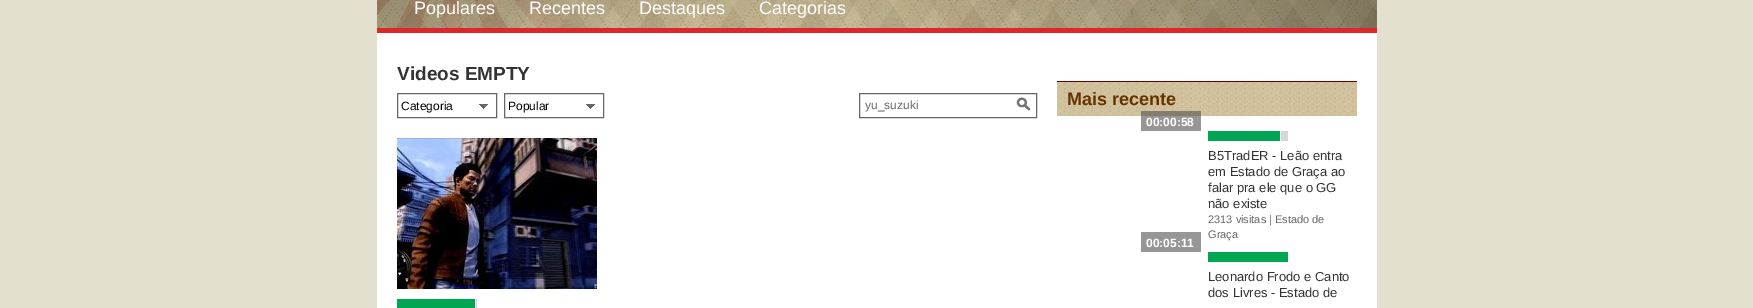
%!PS
<< /PageSize [1753 308] /PageUsesTransparency true >> setpagedevice
/rgb { 3 { 255 div 3 1 roll } repeat setrgbcolor } def
/font { [ exch dup neg 0 0 3 -1 roll 0 0 ] selectfont } def
/text { moveto show } def
/alpha { dup .setfillconstantalpha .setstrokeconstantalpha } def
/picture { 5 dict begin { /h /w /y /x /name } { exch def } forall
  gsave x y translate w h scale
  w h 8 [w 0 0 h 0 0] name (r) file false 3 colorimage grestore end } def
0 .pushpdf14devicefilter
0 308 translate 1 -1 scale
4 setmiterlimit
227 224 207 rgb
0 0 1753 308 rectfill
255 255 255 rgb
377 33 1000 275 rectfill
(img_01.rgb) 377 0 1000 28 picture
221 39 44 rgb
377 28 1000 5 rectfill
102 102 102 rgb
397.5 93.5 99 24 rectstroke
(img_02.rgb) 479 104 9 5 picture
504.5 93.5 99 24 rectstroke
(img_02.rgb) 586 104 9 5 picture
859.5 93.5 177 24 rectstroke
(img_03.rgb) 1016 97 15 14 picture
(img_04.rgb) 397 138 200 151 picture
215 215 215 rgb
476 299 1 9 rectfill
0 166 82 rgb
397 299 78 9 rectfill
(img_05.rgb) 1057 82 300 34 picture
102 0 0 rgb
1057 81 300 1 rectfill
0.6 alpha
80 80 80 rgb
1141 111 60 20 rectfill
1 alpha
215 215 215 rgb
1281 131 7 10 rectfill
0 166 82 rgb
1208 131 72 10 rectfill
150 150 150 rgb
1141 232 60 20 rectfill
0 166 82 rgb
1208 252 80 10 rectfill
/LiberationSans-Regular 18 font
255 255 255 rgb
(Populares) 414 14 text
(Recentes) 529 14 text
(Destaques) 639 14 text
(Categorias) 759 14 text
/LiberationSans-Bold 19 font
51 51 51 rgb
(Videos EMPTY) 397 80 text
/LiberationSans-Regular 12 font
0 0 0 rgb
(Categoria) 401 110 text
(Popular) 508 110 text
102 102 102 rgb
(yu_suzuki) 865 109 text
/LiberationSans-Bold 18 font
102 51 0 rgb
(Mais recente) 1067 105 text
/LiberationSans-Bold 12 font
255 255 255 rgb
(00:00:58) 1146 126 text
/LiberationSans-Regular 13 font
51 51 51 rgb
(B5TradER - Leão entra) 1208 160 text
(em Estado de Graça ao) 1208 176 text
(falar pra ele que o GG) 1208 192 text
(não existe) 1208 208 text
/LiberationSans-Regular 11 font
102 102 102 rgb
(2313 visitas | Estado de) 1208 223 text
(Graça) 1208 238 text
/LiberationSans-Bold 12 font
255 255 255 rgb
(00:05:11) 1146 247 text
/LiberationSans-Regular 13 font
51 51 51 rgb
(Leonardo Frodo e Canto) 1208 281 text
(dos Livres - Estado de) 1208 297 text
.poppdf14devicefilter showpage
